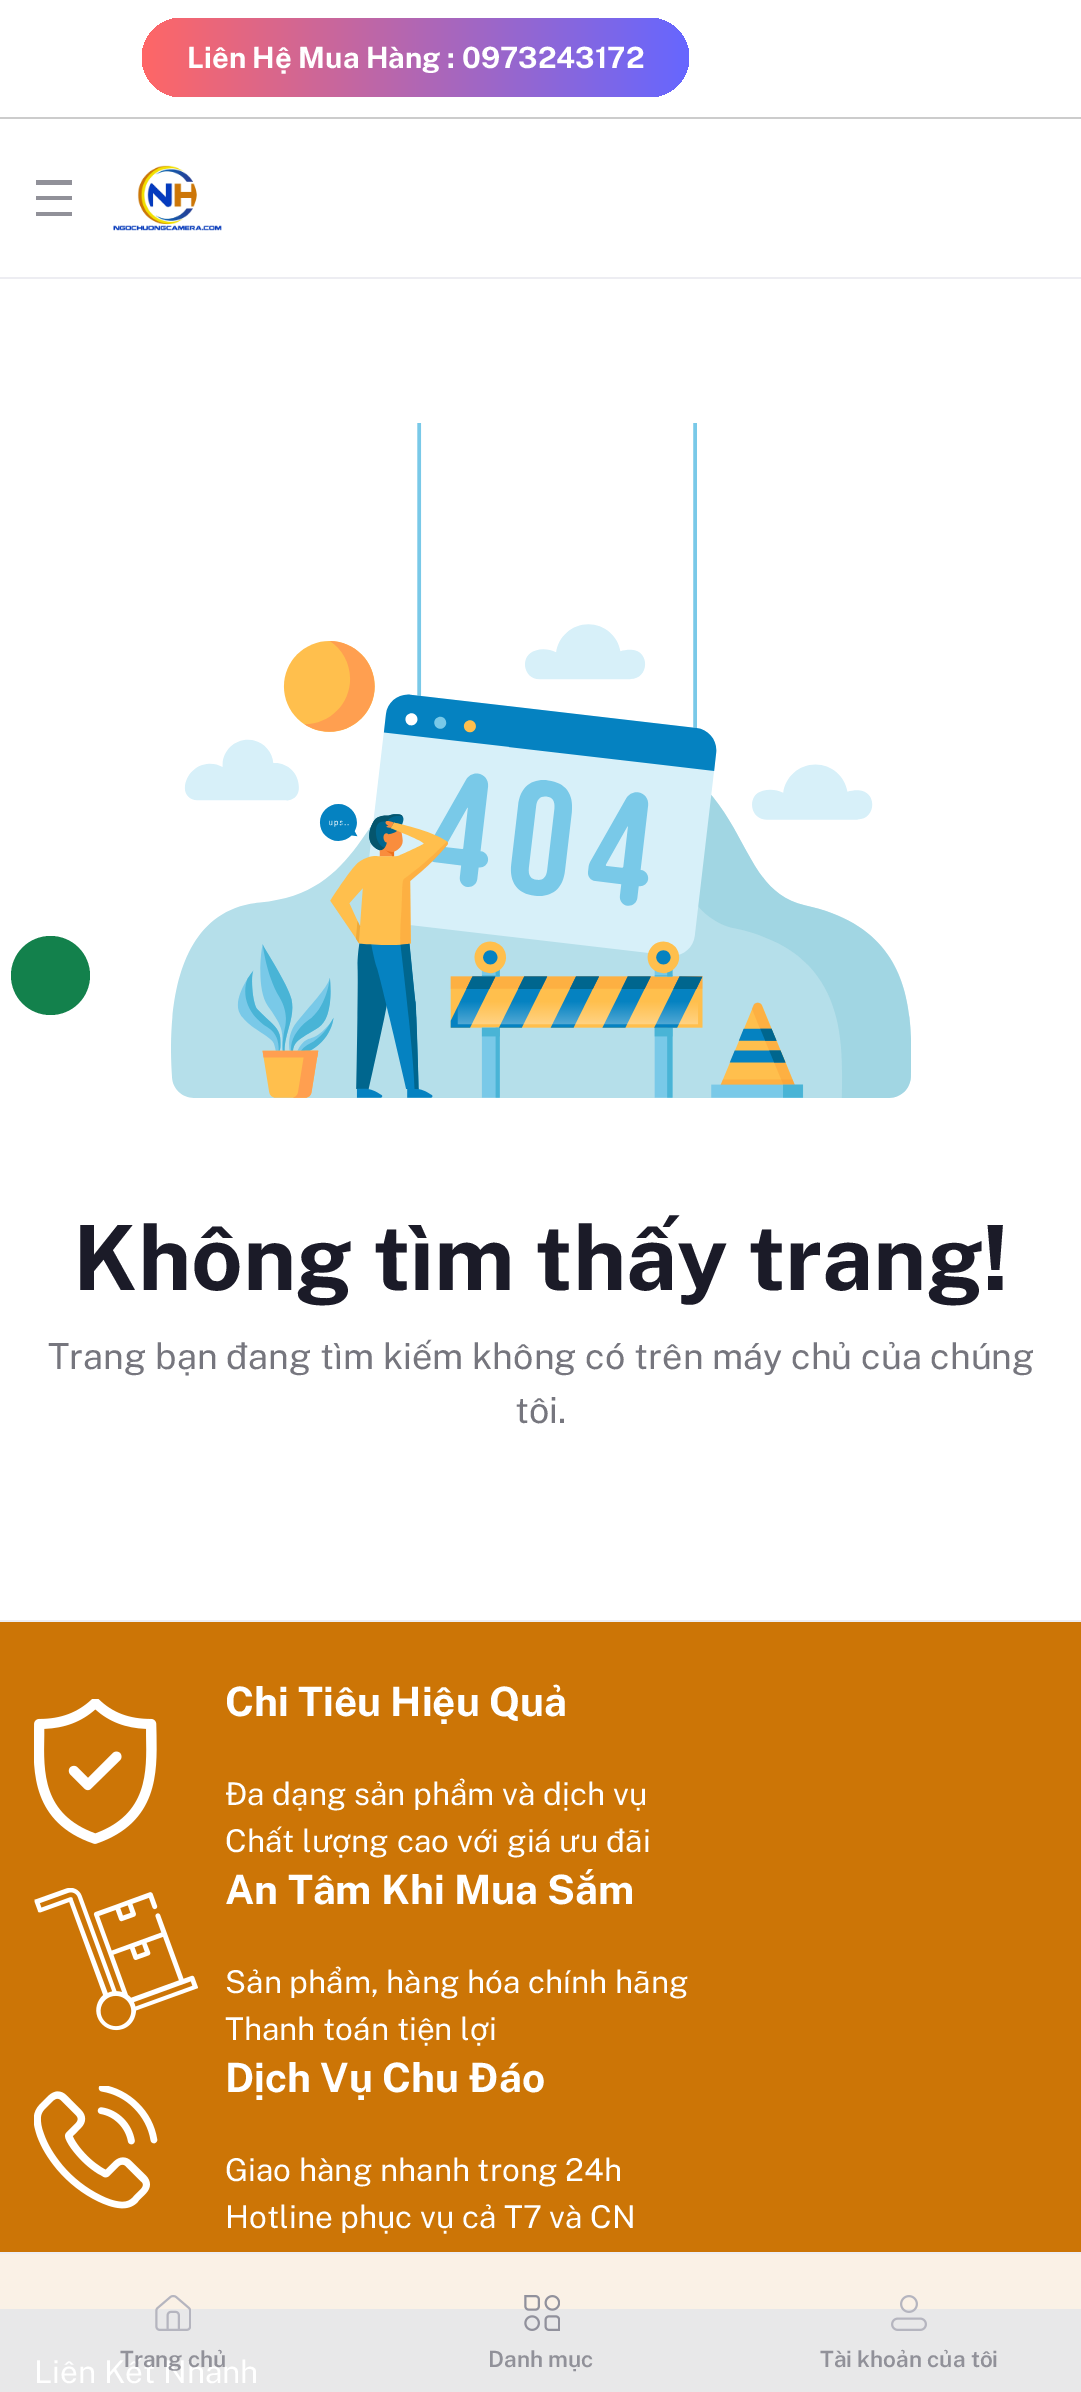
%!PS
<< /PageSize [1081 2392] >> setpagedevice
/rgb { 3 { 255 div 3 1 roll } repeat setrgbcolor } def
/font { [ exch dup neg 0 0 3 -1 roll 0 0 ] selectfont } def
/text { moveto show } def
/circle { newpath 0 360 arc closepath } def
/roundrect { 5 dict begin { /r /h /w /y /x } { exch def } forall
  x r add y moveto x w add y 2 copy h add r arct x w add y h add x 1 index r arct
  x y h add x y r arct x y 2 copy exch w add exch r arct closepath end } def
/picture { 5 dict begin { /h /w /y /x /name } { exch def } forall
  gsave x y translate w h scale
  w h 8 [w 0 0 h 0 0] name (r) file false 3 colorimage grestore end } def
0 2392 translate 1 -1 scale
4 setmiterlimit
255 255 255 rgb
0 0 1081 2392 rectfill
204 204 204 rgb
0 117 1081 2 rectfill
gsave 142 18 547 79 39.5 roundrect clip newpath
<< /ShadingType 2 /ColorSpace /DeviceRGB /Coords [142 57 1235 57] /Extend [true true] /Function << /FunctionType 3 /Domain [0 1] /Functions [<< /FunctionType 2 /Domain [0 1] /C0 [1 0.4 0.4] /C1 [0.4 0.4 1] /N 1 >> << /FunctionType 2 /Domain [0 1] /C0 [0.4 0.4 1] /C1 [1 0.4 0.4] /N 1 >>] /Bounds [0.5] /Encode [0 1 0 1] >> >> shfill grestore
237 237 242 rgb
0 277 1081 2 rectfill
145 145 153 rgb
36 180 36 5 rectfill
36 196 36 4 rectfill
36 212 36 4 rectfill
(img_01.rgb) 113 165 109 66 picture
(img_02.rgb) 171 423 740 675 picture
237 237 242 rgb
0 1620 1081 2 rectfill
204 117 6 rgb
0 1622 1081 630 rectfill
250 241 230 rgb
0 2254 1081 55 rectfill
(img_03.rgb) 34 1699 123 145 picture
(img_04.rgb) 34 1888 164 143 picture
(img_05.rgb) 34 2086 124 123 picture
237 237 242 rgb
0 2252 1081 2 rectfill
232 232 233 rgb
0 2309 1081 83 rectfill
(img_06.rgb) 155 2295 36 36 picture
(img_07.rgb) 524 2295 36 36 picture
(img_08.rgb) 891 2295 36 36 picture
19 129 76 rgb
50.5 975.5 39.5 circle fill
/PublicSans-Bold 29.25 font
255 255 255 rgb
(Liên Hệ Mua Hàng : 0973243172) 187 68 text
/PublicSans-Bold 90 font
27 27 40 rgb
(Không tìm thấy trang!) 73 1290 text
/PublicSans-Regular 36 font
118 118 126 rgb
(Trang bạn đang tìm kiếm không có trên máy chủ của chúng) 48 1369 text
(tôi.) 515 1423 text
/PublicSans-Bold 40.5 font
255 255 255 rgb
(Chi Tiêu Hiệu Quả) 225 1716 text
/PublicSans-Regular 31.5 font
(Đa dạng sản phẩm và dịch vụ) 225 1805 text
(Chất lượng cao với giá ưu đãi) 225 1852 text
/PublicSans-Bold 40.5 font
(An Tâm Khi Mua Sắm) 225 1904 text
/PublicSans-Regular 31.5 font
(Sản phẩm, hàng hóa chính hãng) 225 1993 text
(Thanh toán tiện lợi) 225 2040 text
/PublicSans-Bold 40.5 font
(Dịch Vụ Chu Đáo) 225 2092 text
/PublicSans-Regular 31.5 font
(Giao hàng nhanh trong 24h) 225 2181 text
(Hotline phục vụ cả T7 và CN) 225 2228 text
/PublicSans-SemiBold 22.5 font
145 145 153 rgb
(Danh mục) 488 2367 text
(Tài khoản của tôi) 820 2367 text
/PublicSans-Regular 31.5 font
255 255 255 rgb
(Liên Kết Nhanh) 34 2383 text
/PublicSans-SemiBold 22.5 font
145 145 153 rgb
(Trang chủ) 120 2367 text
showpage
